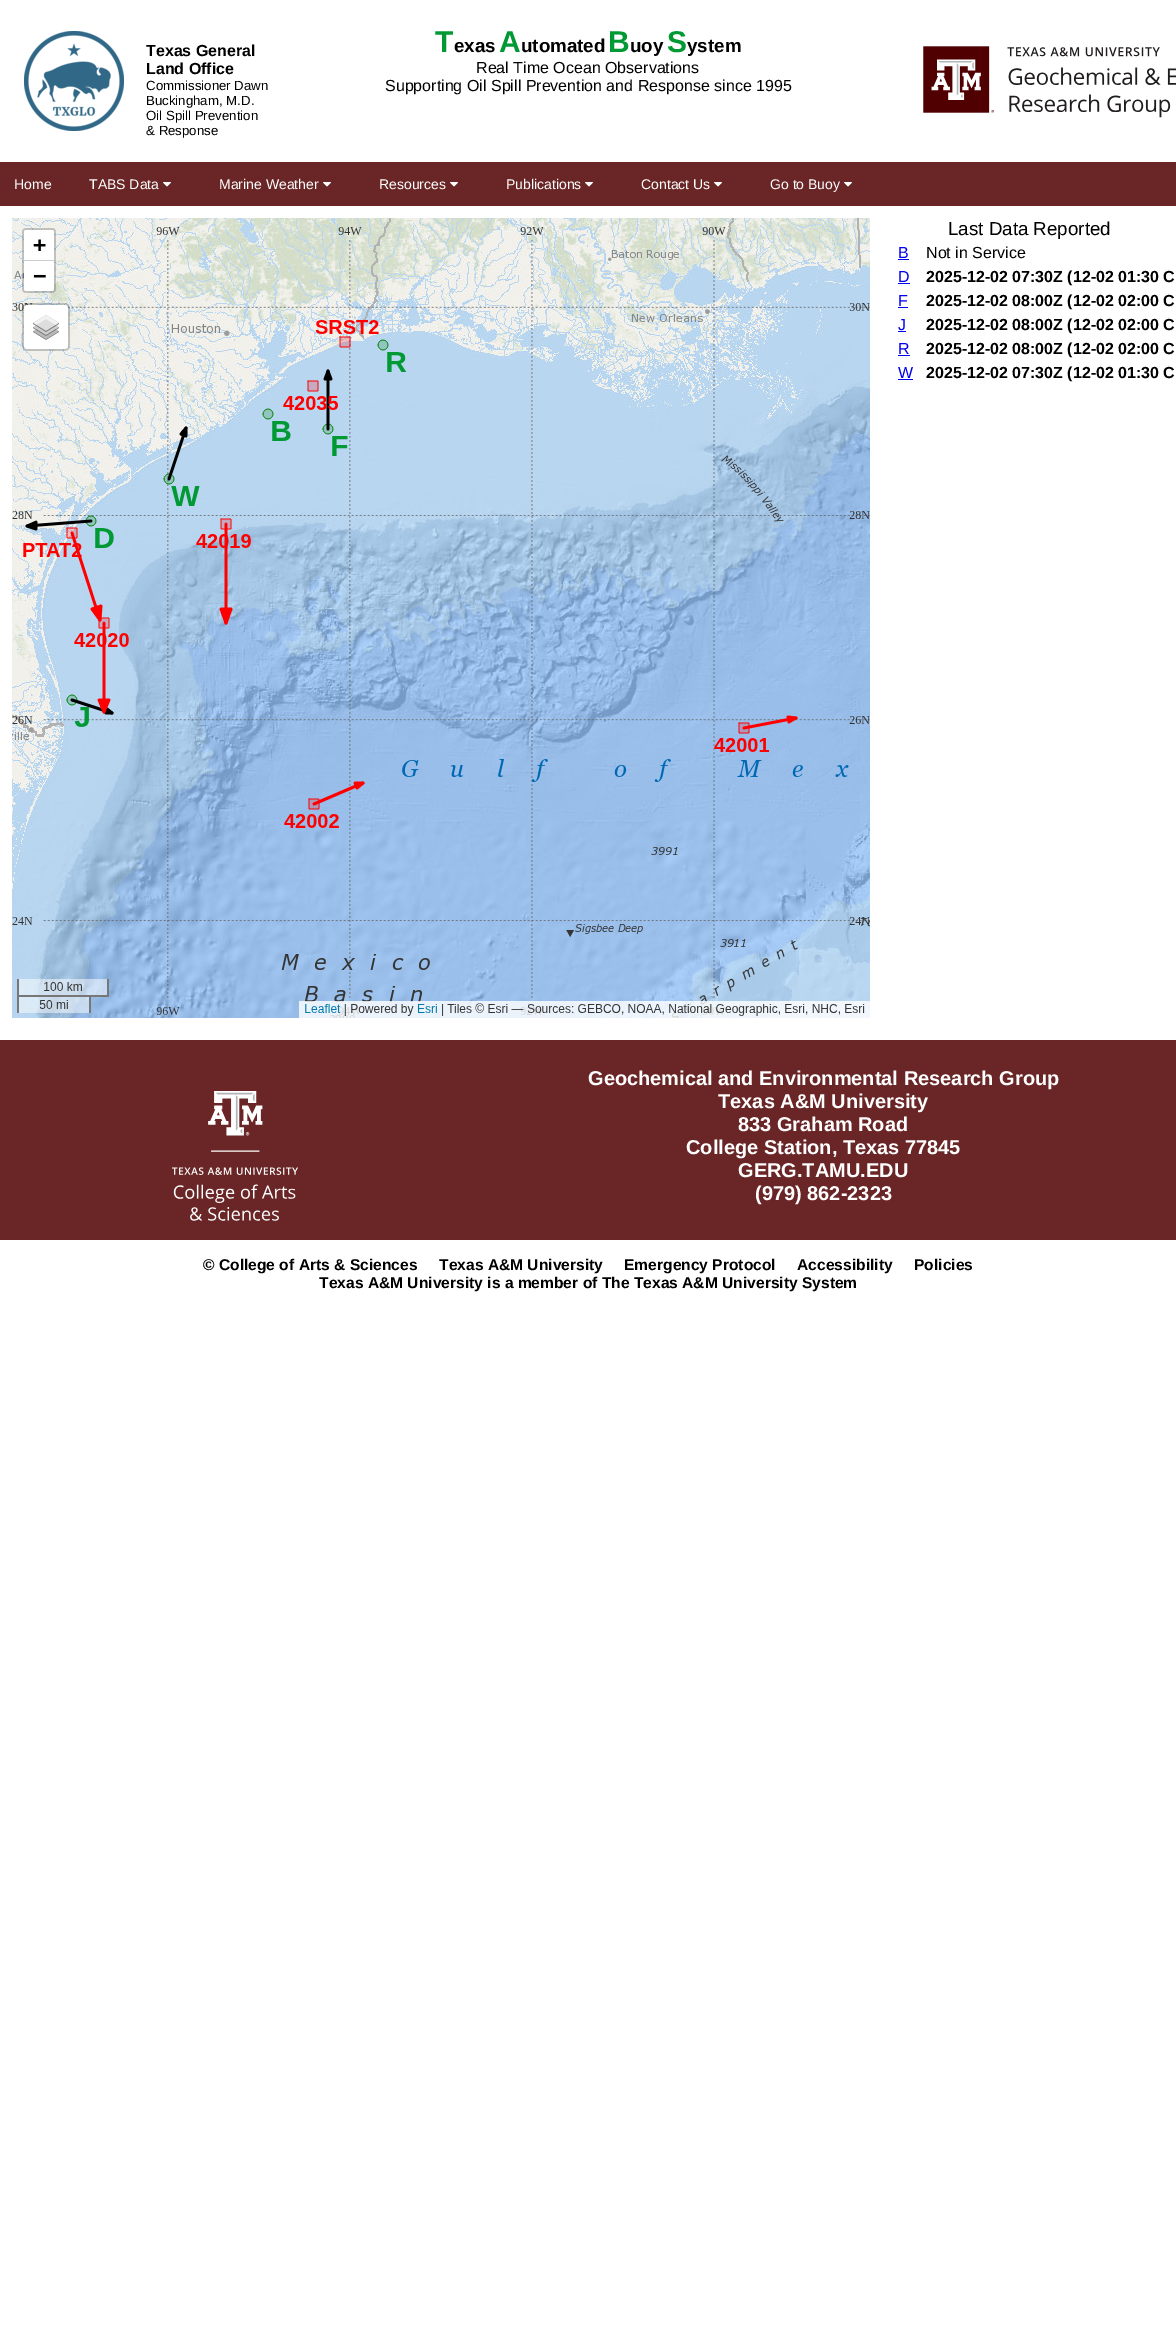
%!PS
<< /PageSize [1176 2334] >> setpagedevice
/rgb { 3 { 255 div 3 1 roll } repeat setrgbcolor } def
/font { [ exch dup neg 0 0 3 -1 roll 0 0 ] selectfont } def
/text { moveto show } def
/picture { 5 dict begin { /h /w /y /x /name } { exch def } forall
  gsave x y translate w h scale
  w h 8 [w 0 0 h 0 0] name (r) file false 3 colorimage grestore end } def
0 2334 translate 1 -1 scale
4 setmiterlimit
255 255 255 rgb
0 0 1176 2334 rectfill
(img_01.rgb) 24 31 100 100 picture
(img_02.rgb) 923 46 253 72 picture
106 38 38 rgb
0 162 1176 44 rectfill
(img_03.rgb) 163 182 8 5 picture
(img_03.rgb) 323 182 8 5 picture
(img_03.rgb) 450 182 8 5 picture
(img_03.rgb) 585 182 8 5 picture
(img_03.rgb) 714 182 8 5 picture
(img_03.rgb) 844 182 8 5 picture
(img_04.rgb) 12 218 858 800 picture
0 0 238 rgb
898 259 11 1 rectfill
898 283 12 1 rectfill
898 307 10 1 rectfill
898 331 8 1 rectfill
898 355 12 1 rectfill
898 379 15 1 rectfill
106 38 38 rgb
0 1040 1176 200 rectfill
(img_05.rgb) 172 1091 126 130 picture
/LiberationSans-Bold 16 font
0 0 0 rgb
(Texas General) 146 56 text
(Land Office) 146 74 text
/LiberationSans-Regular 13.25 font
(Commissioner Dawn) 146 90 text
(Buckingham, M.D.) 146 105 text
(Oil Spill Prevention) 146 120 text
(& Response) 146 135 text
/LiberationSans-Bold 30 font
0 153 51 rgb
(T) 435 52 text
/LiberationSans-Bold 18.75 font
0 0 0 rgb
(exas) 454 52 text
/LiberationSans-Bold 30 font
0 153 51 rgb
(A) 499 52 text
/LiberationSans-Bold 18.75 font
0 0 0 rgb
(utomated) 521 52 text
/LiberationSans-Bold 30 font
0 153 51 rgb
(B) 608 52 text
/LiberationSans-Bold 18.75 font
0 0 0 rgb
(uoy) 630 52 text
/LiberationSans-Bold 30 font
0 153 51 rgb
(S) 667 52 text
/LiberationSans-Bold 18.75 font
0 0 0 rgb
(ystem) 687 52 text
/LiberationSans-Regular 16 font
(Real Time Ocean Observations) 476 73 text
(Supporting Oil Spill Prevention and Response since 1995) 385 91 text
/LiberationSans-Regular 14 font
255 255 255 rgb
(Home) 14 189 text
(TABS Data) 89 189 text
(Marine Weather) 219 189 text
(Resources) 379 189 text
(Publications) 506 189 text
(Contact Us) 641 189 text
(Go to Buoy) 770 189 text
/LiberationSans-Regular 18.75 font
0 0 0 rgb
(Last Data Reported) 948 235 text
/LiberationSans-Regular 16 font
0 0 238 rgb
(B) 898 258 text
0 0 0 rgb
(Not in Service) 926 258 text
0 0 238 rgb
(D) 898 282 text
/LiberationSans-Bold 16 font
0 0 0 rgb
(2025-12-02 07:30Z \(12-02 01:30 C) 926 282 text
/LiberationSans-Regular 16 font
0 0 238 rgb
(F) 898 306 text
/LiberationSans-Bold 16 font
0 0 0 rgb
(2025-12-02 08:00Z \(12-02 02:00 C) 926 306 text
/LiberationSans-Regular 16 font
0 0 238 rgb
(J) 898 330 text
/LiberationSans-Bold 16 font
0 0 0 rgb
(2025-12-02 08:00Z \(12-02 02:00 C) 926 330 text
/LiberationSans-Regular 16 font
0 0 238 rgb
(R) 898 354 text
/LiberationSans-Bold 16 font
0 0 0 rgb
(2025-12-02 08:00Z \(12-02 02:00 C) 926 354 text
/LiberationSans-Regular 16 font
0 0 238 rgb
(W) 898 378 text
/LiberationSans-Bold 16 font
0 0 0 rgb
(2025-12-02 07:30Z \(12-02 01:30 C) 926 378 text
/LiberationSans-Bold 20 font
255 255 255 rgb
(Geochemical and Environmental Research Group) 588 1085 text
(Texas A&M University) 718 1108 text
(833 Graham Road) 738 1131 text
(College Station, Texas 77845) 686 1154 text
(GERG.TAMU.EDU) 738 1177 text
(\(979\) 862-2323) 755 1200 text
/LiberationSans-Bold 15.6 font
0 0 0 rgb
(© College of Arts & Sciences) 203 1270 text
(Texas A&M University) 439 1270 text
(Emergency Protocol) 624 1270 text
(Accessibility) 797 1270 text
(Policies) 914 1270 text
(Texas A&M University is a member of The Texas A&M University System) 319 1288 text
showpage
